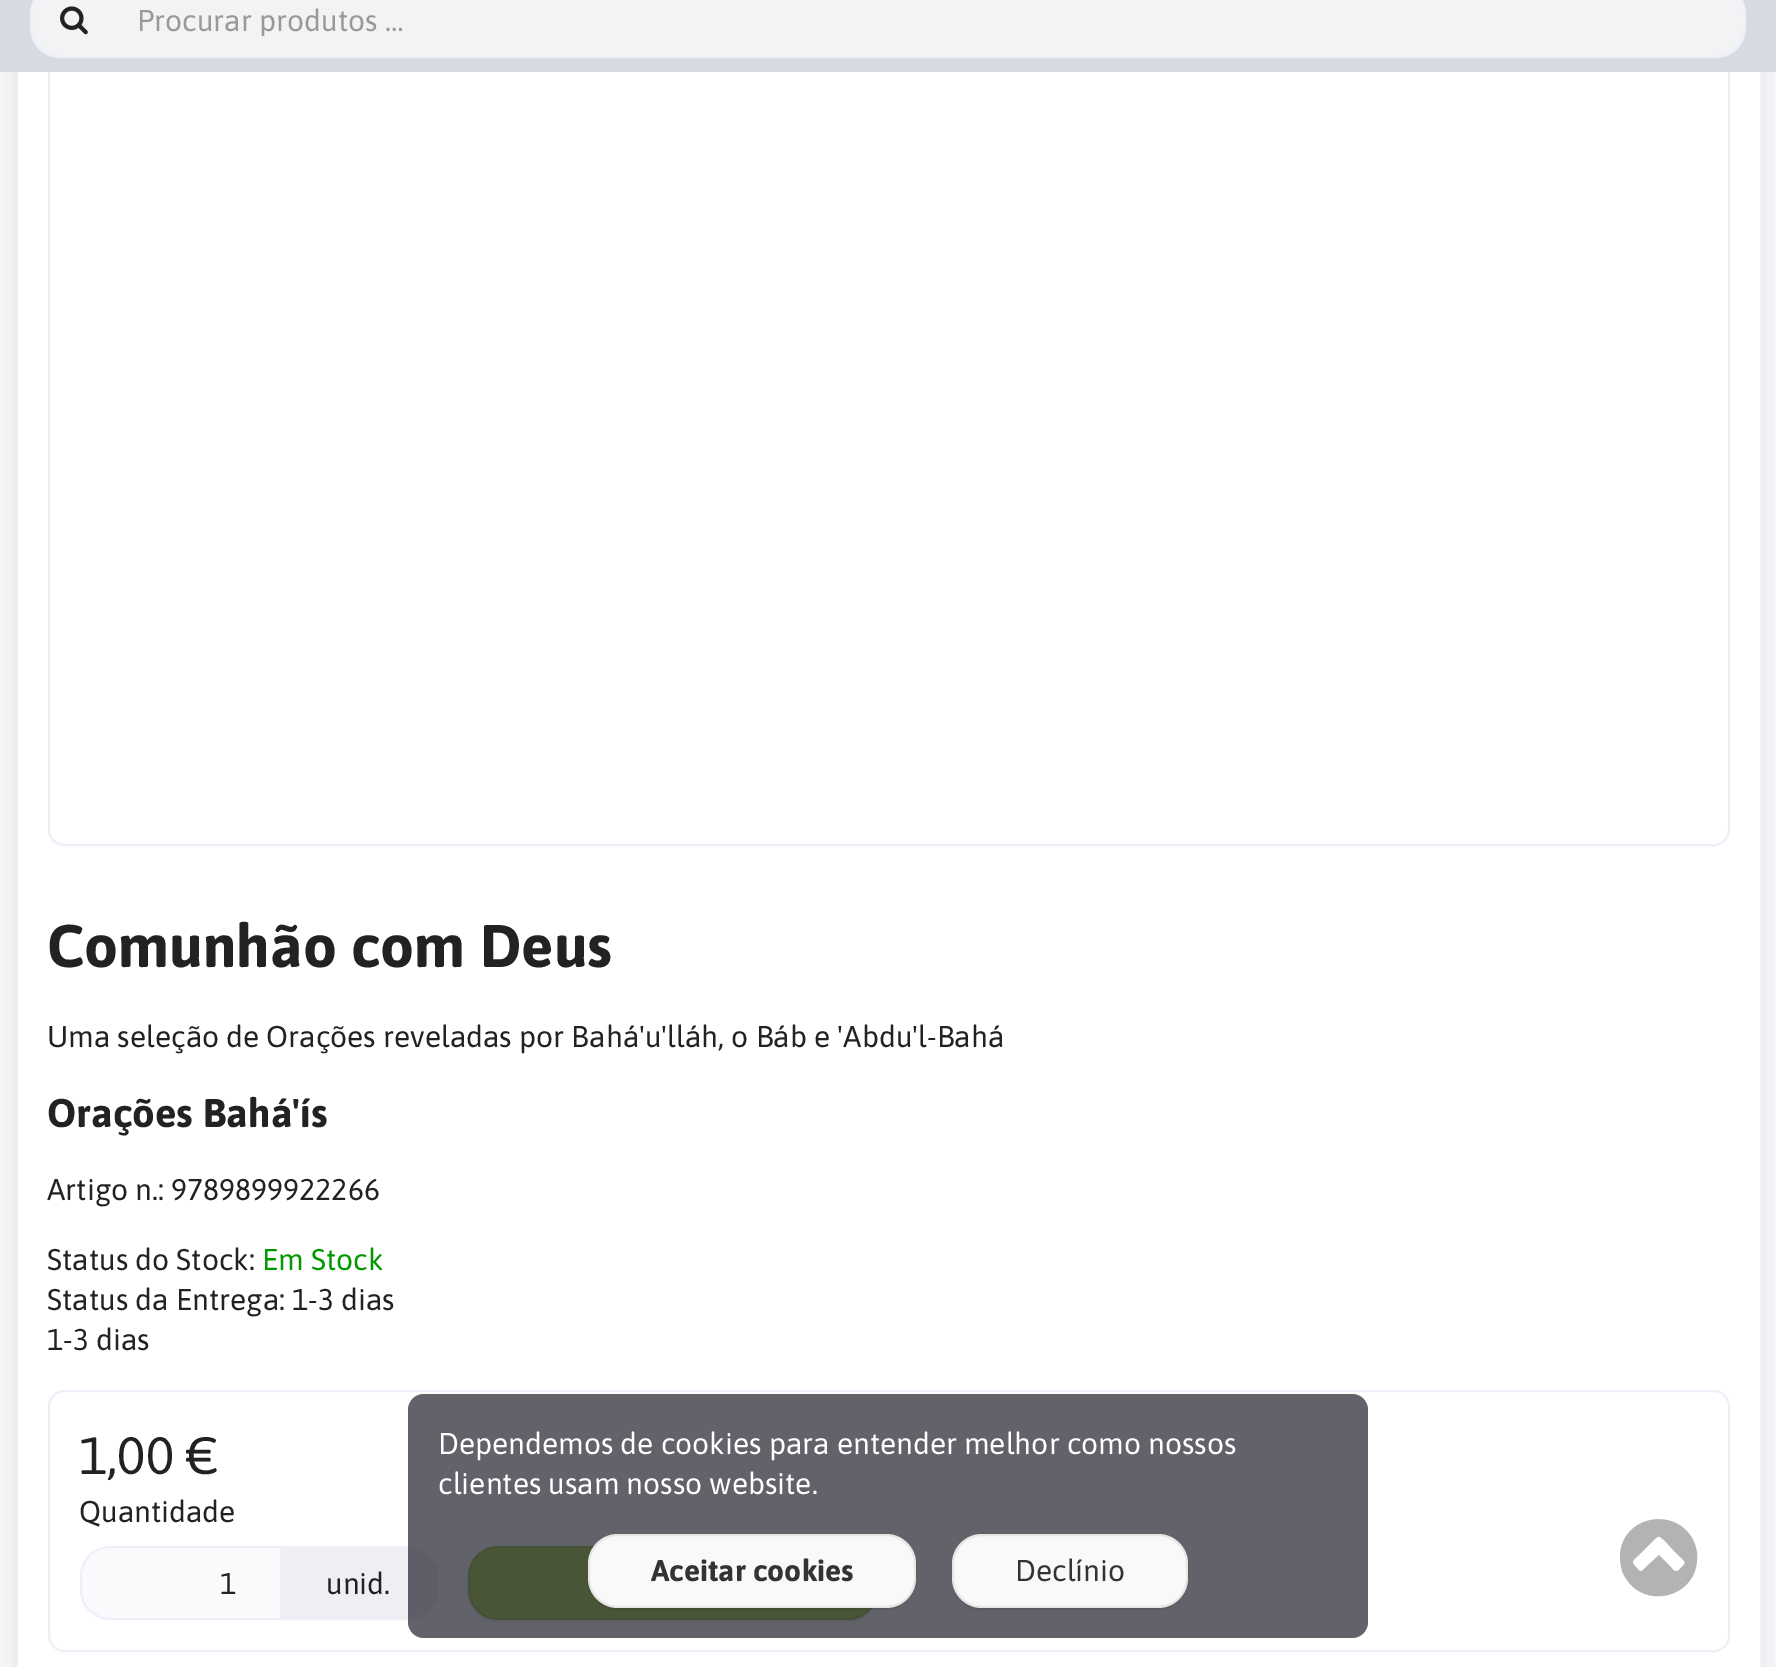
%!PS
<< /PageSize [1776 1667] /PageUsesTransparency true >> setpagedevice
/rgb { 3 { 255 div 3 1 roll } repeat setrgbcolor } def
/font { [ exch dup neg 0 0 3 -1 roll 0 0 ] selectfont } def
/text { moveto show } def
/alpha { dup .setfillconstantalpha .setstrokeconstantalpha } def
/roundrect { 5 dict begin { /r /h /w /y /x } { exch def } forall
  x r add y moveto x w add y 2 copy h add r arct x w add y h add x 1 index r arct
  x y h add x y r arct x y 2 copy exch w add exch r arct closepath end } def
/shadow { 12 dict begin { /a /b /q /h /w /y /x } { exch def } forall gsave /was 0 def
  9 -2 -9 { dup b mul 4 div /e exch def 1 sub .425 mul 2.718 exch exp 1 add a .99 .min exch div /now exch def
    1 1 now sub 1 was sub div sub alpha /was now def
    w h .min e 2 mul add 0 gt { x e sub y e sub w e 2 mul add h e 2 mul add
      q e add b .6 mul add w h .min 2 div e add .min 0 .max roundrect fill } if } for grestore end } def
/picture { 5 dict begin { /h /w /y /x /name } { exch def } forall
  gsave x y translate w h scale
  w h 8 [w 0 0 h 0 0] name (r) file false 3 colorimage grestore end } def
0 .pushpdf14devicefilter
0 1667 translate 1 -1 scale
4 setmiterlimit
249 250 252 rgb
0 0 1776 1667 rectfill
0 0 0 rgb
16 -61 1746 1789 16 15 0.1 shadow
255 255 255 rgb
18 72 1742 1595 rectfill
239 239 249 rgb
2 setlinewidth
17 -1 1744 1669 rectstroke
49 -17 1680 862 15 roundrect stroke
215 218 227 rgb
0 0 1776 72 rectfill
241 243 245 rgb
31 -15 1714 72 29 roundrect gsave fill grestore
239 239 249 rgb
stroke
(img_01.rgb) 60 6 28 29 picture
49 1391 1680 260 15 roundrect stroke
250 250 252 rgb
81 1547 356 72 29 roundrect gsave fill grestore
239 239 249 rgb
stroke
237 239 243 rgb
280 1548 moveto 128 0 rlineto 16.5 0 30 13.5 30 30 rcurveto 0 10 rlineto 0 16.5 -13.5 30 -30 30 rcurveto -128 0 rlineto closepath fill
239 239 249 rgb
436 1564 2 40 rectfill
280 1548 2 70 rectfill
0 0 0 rgb
468 1548 410 74 30 1 0.1 shadow
152 204 52 rgb
468 1546 410 74 30 roundrect fill
0.07 alpha
0 0 0 rgb
469 1547 408 72 29 roundrect stroke
0.75 alpha
45 45 56 rgb
408 1394 960 244 16 roundrect fill
1 alpha
0 0 0 rgb
588 1536 328 74 30 1 0.1 shadow
249 249 249 rgb
588 1534 328 74 30 roundrect fill
0.07 alpha
0 0 0 rgb
589 1535 326 72 29 roundrect stroke
1 alpha
952 1536 236 74 30 1 0.1 shadow
249 249 249 rgb
952 1534 236 74 30 roundrect fill
0.07 alpha
0 0 0 rgb
953 1535 234 72 29 roundrect stroke
1 alpha
179 179 179 rgb
1679 1570 moveto 9 -9 7 -7 -3 -17 rcurveto -11 -12 rlineto -7 -6 -6 -6 -12 0 rcurveto -12 12 rlineto -6 6 -12 8 -5 14 rcurveto 4 5 5 6 10 0 rcurveto 13 -12 rlineto 10 10 rlineto 2 2 6 9 10 5 rcurveto closepath 1692 1538 moveto 4 7 6 15 5 22 rcurveto -2 38 -53 50 -72 17 rcurveto -4 -6 -5 -14 -5 -22 rcurveto 2 -38 53 -49 72 -17 rcurveto closepath fill
gsave
136 2 1538 34 rectclip
/Asap-Regular 30 font
153 153 153 rgb
(Procurar produtos …) 137 31 text
grestore
/Asap-Bold 60 font
34 34 34 rgb
(Comunhão com Deus) 47 967 text
/Asap-Regular 30 font
(Uma seleção de Orações reveladas por Bahá'u'lláh, o Báb e 'Abdu'l-Bahá) 47 1047 text
/Asap-Bold 40 font
(Orações Bahá'ís) 47 1127 text
/Asap-Regular 30 font
(Artigo n.: 9789899922266) 47 1200 text
(Status do Stock:) 47 1270 text
0 153 0 rgb
(Em Stock) 262 1270 text
34 34 34 rgb
(Status da Entrega: 1-3 dias) 47 1310 text
(1-3 dias) 47 1350 text
/Asap-Regular 52.5 font
(1,00 €) 79 1474 text
/Asap-Regular 30 font
(Quantidade) 79 1522 text
(1) 220 1594 text
(unid.) 326 1594 text
255 255 255 rgb
(Dependemos de cookies para entender melhor como nossos) 438 1454 text
(clientes usam nosso website.) 438 1494 text
/Asap-Bold 30 font
51 51 51 rgb
(Aceitar cookies) 651 1581 text
/Asap-Regular 30 font
(Declínio) 1015 1581 text
.poppdf14devicefilter showpage
